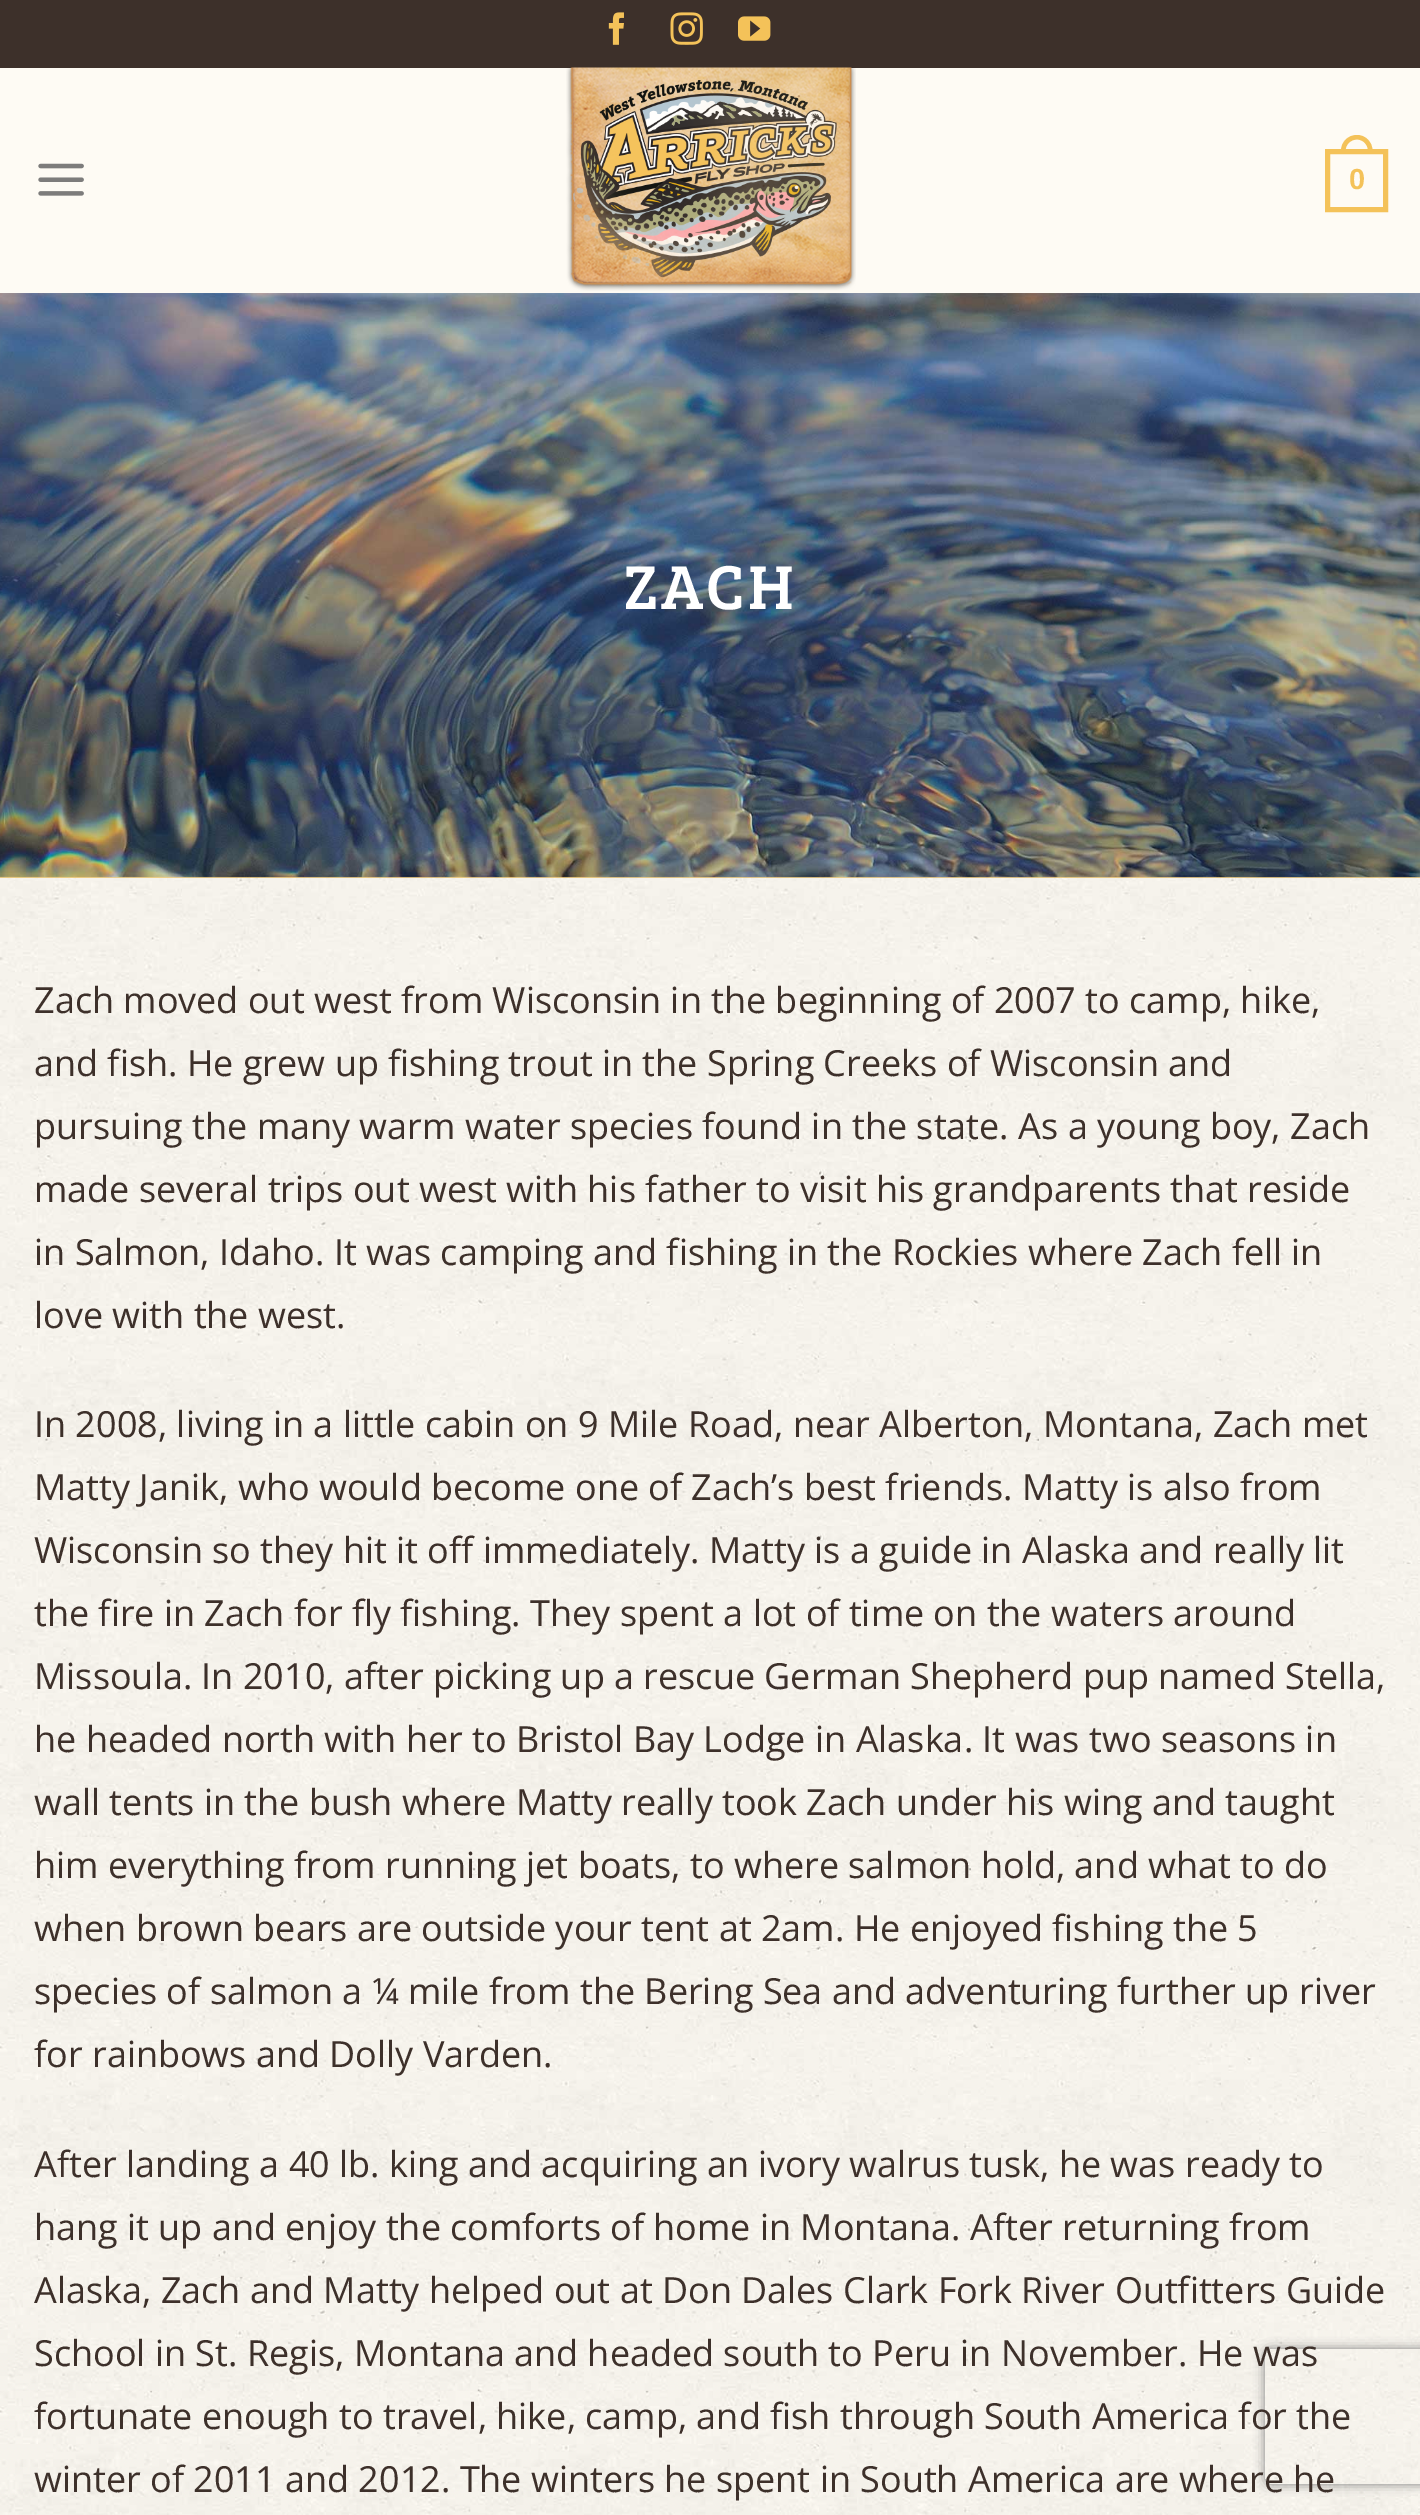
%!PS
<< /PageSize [1420 2515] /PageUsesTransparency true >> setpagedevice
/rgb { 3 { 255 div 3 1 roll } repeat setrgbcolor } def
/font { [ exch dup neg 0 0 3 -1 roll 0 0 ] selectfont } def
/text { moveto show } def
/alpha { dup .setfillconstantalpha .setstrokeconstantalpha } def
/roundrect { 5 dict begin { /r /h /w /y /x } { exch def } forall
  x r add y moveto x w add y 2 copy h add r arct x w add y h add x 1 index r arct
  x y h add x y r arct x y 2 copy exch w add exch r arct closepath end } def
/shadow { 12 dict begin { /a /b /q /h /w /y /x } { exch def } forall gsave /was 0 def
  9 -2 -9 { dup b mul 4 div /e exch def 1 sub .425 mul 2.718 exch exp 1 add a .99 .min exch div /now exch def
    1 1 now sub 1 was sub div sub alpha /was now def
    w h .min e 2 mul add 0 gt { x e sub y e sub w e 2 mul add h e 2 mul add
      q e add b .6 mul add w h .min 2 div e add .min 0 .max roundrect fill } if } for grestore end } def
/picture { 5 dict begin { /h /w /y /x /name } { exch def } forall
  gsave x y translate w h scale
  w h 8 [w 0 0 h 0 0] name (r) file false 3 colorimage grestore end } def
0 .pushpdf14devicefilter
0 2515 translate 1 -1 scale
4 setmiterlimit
244 194 89 rgb
0 0 1420 2515 rectfill
61 48 42 rgb
0 0 1420 68 rectfill
(img_01.rgb) 608 12 16 33 picture
(img_02.rgb) 670 12 33 33 picture
(img_03.rgb) 738 16 33 25 picture
254 251 244 rgb
0 68 1420 225 rectfill
(img_04.rgb) 38 163 46 33 picture
(img_05.rgb) 566 67 290 224 picture
244 194 89 rgb
5 setlinewidth
1327.5 151.5 58 58 rectstroke
1357 135 moveto 8.5 0 15.5 7 15.5 16 rcurveto 0 2 rlineto -31.5 0 rlineto 0 -2 rlineto 0 -9 7 -16 16 -16 rcurveto closepath 1357 139.5 moveto 6 0 11 5 11 11.5 rcurveto 0 2 rlineto -22.5 0 rlineto 0 -2 rlineto 0 -6.5 5 -11.5 11.5 -11.5 rcurveto closepath eofill
(img_06.rgb) 0 293 1420 585 picture
(img_07.rgb) 0 877 1420 1638 picture
gsave
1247 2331 moveto 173 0 rlineto 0 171 rlineto -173 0 rlineto closepath 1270 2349 moveto 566 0 rlineto 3 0 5 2 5 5 rcurveto 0 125 rlineto 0 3 -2 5 -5 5 rcurveto -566 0 rlineto -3 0 -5 -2 -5 -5 rcurveto 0 -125 rlineto 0 -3 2 -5 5 -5 rcurveto closepath eoclip newpath
128 128 128 rgb
1265 2349 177 135 5 5.5 1 shadow
grestore
/LiberationSans-Bold 29 font
(0) 1349 189 text
/BreeSerif-Regular 64 font
255 255 255 rgb
624 609 moveto 3 0 (ZACH) ashow
/OpenSans-Regular 36 font
61 48 42 rgb
(Zach moved out west from Wisconsin in the beginning of 2007 to camp, hike,) 34 1013 text
(and fish. He grew up fishing trout in the Spring Creeks of Wisconsin and) 34 1076 text
(pursuing the many warm water species found in the state. As a young boy, Zach) 34 1139 text
(made several trips out west with his father to visit his grandparents that reside) 34 1202 text
(in Salmon, Idaho. It was camping and fishing in the Rockies where Zach fell in) 34 1265 text
(love with the west.) 34 1328 text
(In 2008, living in a little cabin on 9 Mile Road, near Alberton, Montana, Zach met) 34 1437 text
(Matty Janik, who would become one of Zach’s best friends. Matty is also from) 34 1500 text
(Wisconsin so they hit it off immediately. Matty is a guide in Alaska and really lit) 34 1563 text
(the fire in Zach for fly fishing. They spent a lot of time on the waters around) 34 1626 text
(Missoula. In 2010, after picking up a rescue German Shepherd pup named Stella,) 34 1689 text
(he headed north with her to Bristol Bay Lodge in Alaska. It was two seasons in) 34 1752 text
(wall tents in the bush where Matty really took Zach under his wing and taught) 34 1815 text
(him everything from running jet boats, to where salmon hold, and what to do) 34 1878 text
(when brown bears are outside your tent at 2am. He enjoyed fishing the 5) 34 1941 text
(species of salmon a ¼ mile from the Bering Sea and adventuring further up river) 34 2004 text
(for rainbows and Dolly Varden.) 34 2067 text
(After landing a 40 lb. king and acquiring an ivory walrus tusk, he was ready to) 34 2177 text
(hang it up and enjoy the comforts of home in Montana. After returning from) 34 2240 text
(Alaska, Zach and Matty helped out at Don Dales Clark Fork River Outfitters Guide) 34 2303 text
(School in St. Regis, Montana and headed south to Peru in November. He was) 34 2366 text
(fortunate enough to travel, hike, camp, and fish through South America for the) 34 2429 text
(winter of 2011 and 2012. The winters he spent in South America are where he) 34 2492 text
.poppdf14devicefilter showpage
